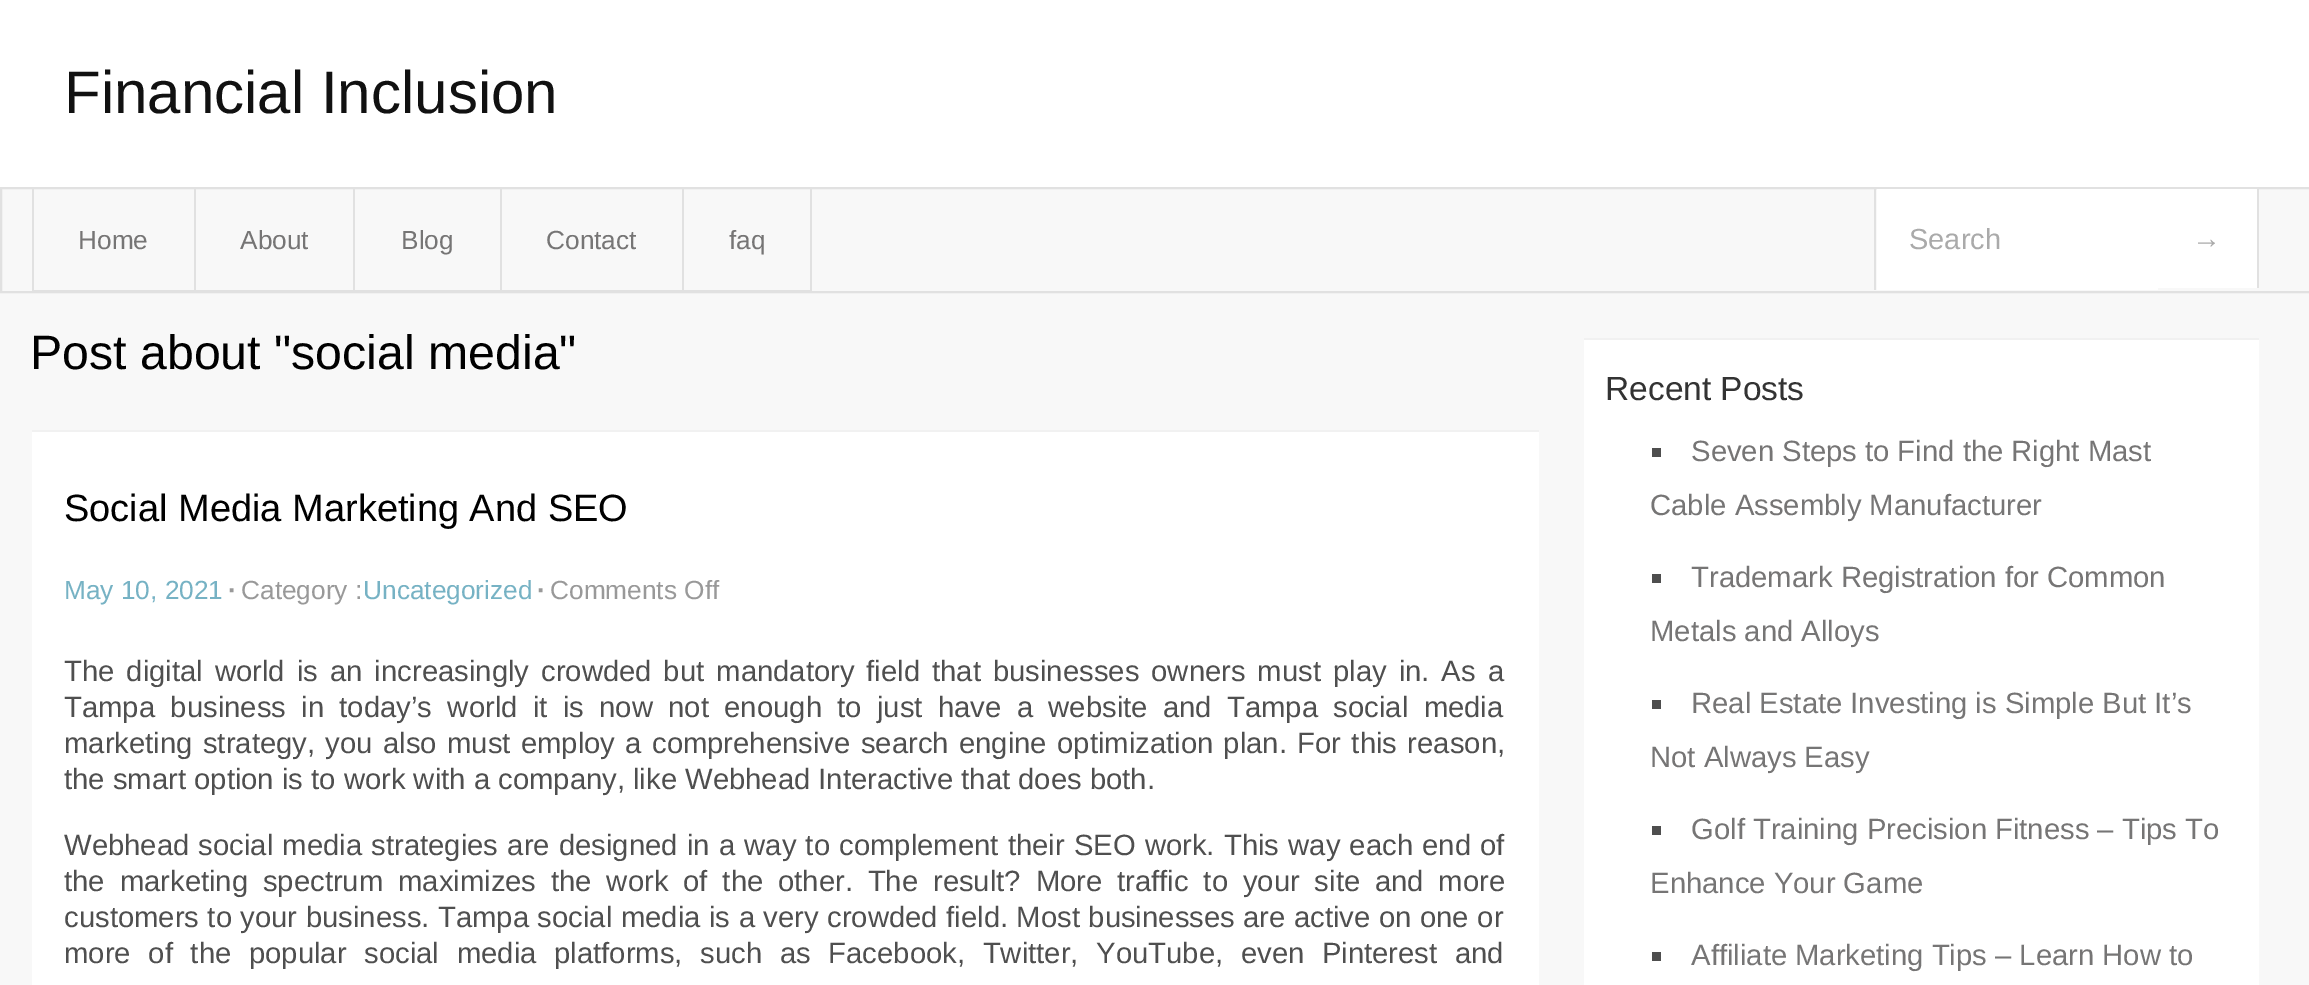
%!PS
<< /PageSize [2309 985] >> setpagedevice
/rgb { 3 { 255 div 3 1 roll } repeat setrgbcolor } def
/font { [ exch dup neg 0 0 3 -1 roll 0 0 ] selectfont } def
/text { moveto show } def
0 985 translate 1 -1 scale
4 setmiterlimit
248 248 248 rgb
0 0 2309 985 rectfill
255 255 255 rgb
0 0 2309 187 rectfill
225 225 225 rgb
2 setlinewidth
1 188 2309 104 rectstroke
32 189 2 104 rectfill
194 189 2 104 rectfill
34 290 162 1 rectfill
353 189 2 104 rectfill
196 290 160 1 rectfill
500 189 2 104 rectfill
356 290 146 1 rectfill
682 189 2 104 rectfill
502 290 182 1 rectfill
810 189 2 104 rectfill
684 290 128 1 rectfill
255 255 255 rgb
1877 189 281 101 rectfill
225 225 225 rgb
1874 189 2 101 rectfill
255 255 255 rgb
2158 189 99 99 rectfill
225 225 225 rgb
2257 189 2 99 rectfill
255 255 255 rgb
32 432 1507 553 rectfill
241 241 241 rgb
32 430 1507 2 rectfill
255 255 255 rgb
1584 340 675 645 rectfill
241 241 241 rgb
1584 338 675 2 rectfill
78 78 78 rgb
1652 448 9 9 rectfill
1652 574 9 9 rectfill
1652 700 9 9 rectfill
1652 826 9 9 rectfill
1652 952 9 9 rectfill
/LiberationSans-Regular 60 font
17 17 17 rgb
(Financial Inclusion) 64 113 text
/LiberationSans-Regular 26.25 font
118 117 117 rgb
(Home) 78 249 text
(About) 240 249 text
(Blog) 401 249 text
(Contact) 546 249 text
(faq) 729 249 text
/LiberationSans-Regular 29 font
170 170 170 rgb
(Search) 1909 249 text
(→) 2192 248 text
/LiberationSans-Regular 48.25 font
0 0 0 rgb
(Post about "social media") 30 369 text
/LiberationSans-Regular 38 font
(Social Media Marketing And SEO) 64 521 text
/LiberationSans-Regular 26.25 font
118 178 196 rgb
(May 10, 2021) 64 599 text
/LiberationSans-Bold 26.25 font
153 153 153 rgb
(·) 228 599 text
/LiberationSans-Regular 26.25 font
(Category :) 241 599 text
118 178 196 rgb
(Uncategorized) 363 599 text
/LiberationSans-Bold 26.25 font
153 153 153 rgb
(·) 537 599 text
/LiberationSans-Regular 26.25 font
(Comments Off) 550 599 text
/LiberationSans-Regular 29.25 font
79 79 79 rgb
64 681 moveto 3.9 0 32 (The digital world is an increasingly crowded but mandatory field that businesses owners must play in. As a) widthshow
64 717 moveto 7.25 0 32 (Tampa business in today’s world it is now not enough to just have a website and Tampa social media) widthshow
64 753 moveto 2.25 0 32 (marketing strategy, you also must employ a comprehensive search engine optimization plan. For this reason,) widthshow
(the smart option is to work with a company, like Webhead Interactive that does both.) 64 789 text
64 855 moveto 1.1 0 32 (Webhead social media strategies are designed in a way to complement their SEO work. This way each end of) widthshow
64 891 moveto 6.75 0 32 (the marketing spectrum maximizes the work of the other. The result? More traffic to your site and more) widthshow
64 927 moveto 0.4 0 32 (customers to your business. Tampa social media is a very crowded field. Most businesses are active on one or) widthshow
64 963 moveto 9.6 0 32 (more of the popular social media platforms, such as Facebook, Twitter, YouTube, even Pinterest and) widthshow
/LiberationSans-Regular 33.5 font
51 51 51 rgb
(Recent Posts) 1605 400 text
/LiberationSans-Regular 29.25 font
118 117 117 rgb
(Seven Steps to Find the Right Mast) 1691 461 text
(Cable Assembly Manufacturer) 1650 515 text
(Trademark Registration for Common) 1691 587 text
(Metals and Alloys) 1650 641 text
(Real Estate Investing is Simple But It’s) 1691 713 text
(Not Always Easy) 1650 767 text
(Golf Training Precision Fitness – Tips To) 1691 839 text
(Enhance Your Game) 1650 893 text
(Affiliate Marketing Tips – Learn How to) 1691 965 text
showpage
